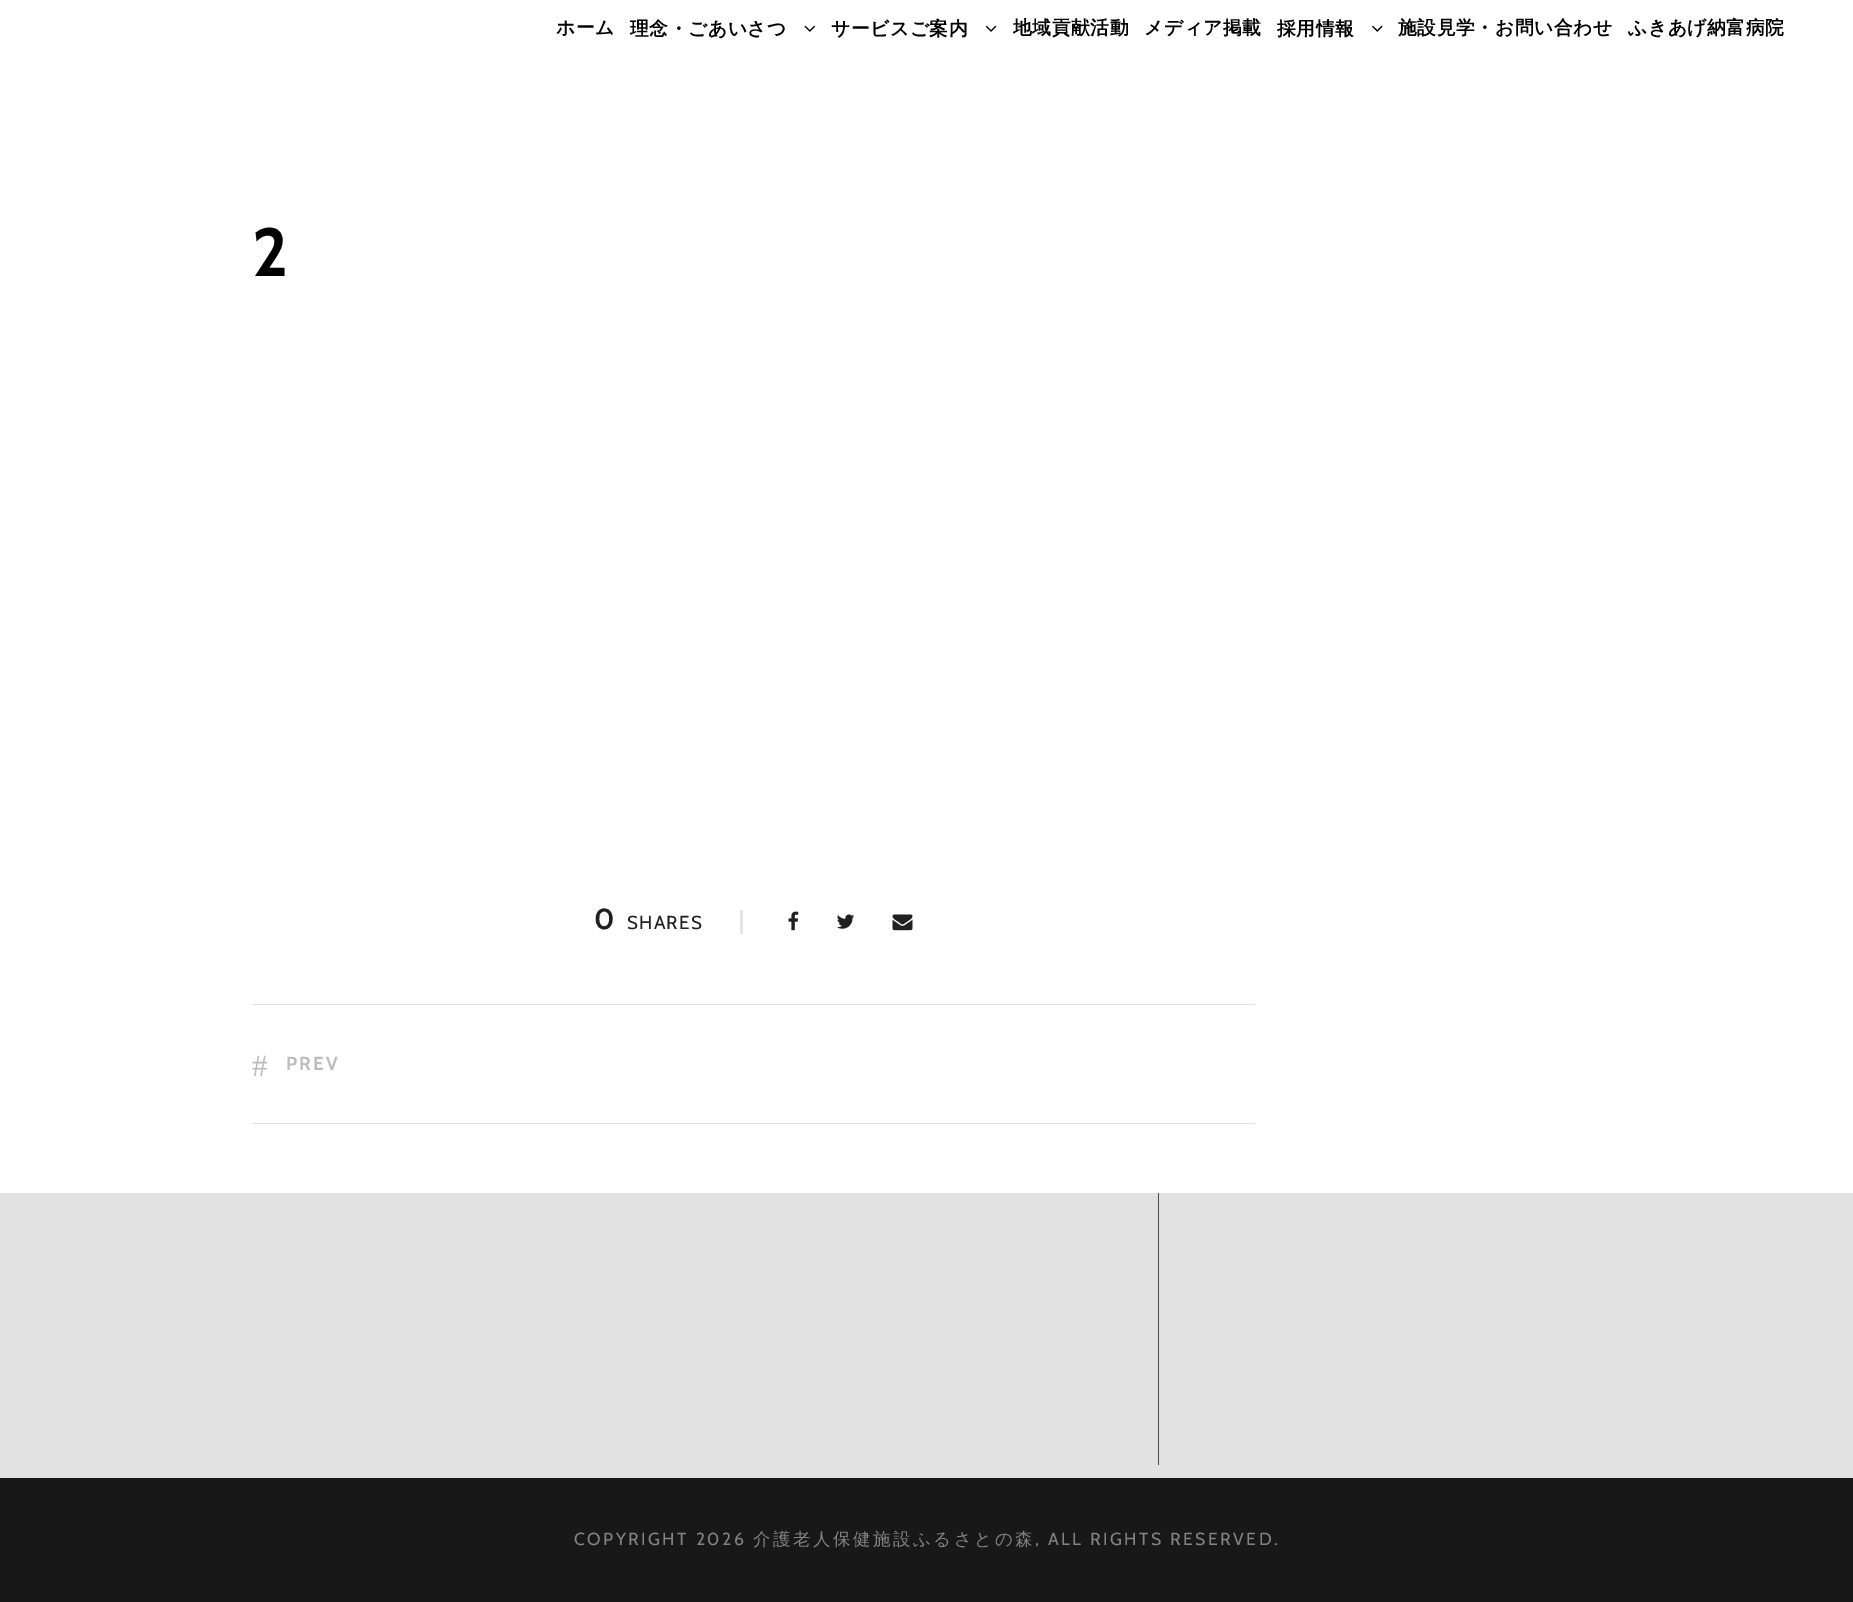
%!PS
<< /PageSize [1853 1602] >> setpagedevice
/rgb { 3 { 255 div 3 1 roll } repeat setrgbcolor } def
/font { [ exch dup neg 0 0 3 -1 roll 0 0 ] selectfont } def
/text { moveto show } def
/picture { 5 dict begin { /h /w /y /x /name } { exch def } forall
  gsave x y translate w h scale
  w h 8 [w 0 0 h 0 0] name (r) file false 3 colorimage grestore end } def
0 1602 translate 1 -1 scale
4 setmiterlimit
226 226 226 rgb
0 0 1853 1602 rectfill
255 255 255 rgb
0 0 1853 1193 rectfill
(img_01.rgb) 804 25 11 7 picture
(img_02.rgb) 985 25 12 7 picture
(img_03.rgb) 1372 25 11 7 picture
229 229 229 rgb
740 910 3 24 rectfill
(img_04.rgb) 788 911 11 20 picture
(img_05.rgb) 837 914 18 15 picture
(img_06.rgb) 892 914 21 17 picture
226 226 226 rgb
253 1004 1002 1 rectfill
253 1123 1002 1 rectfill
73 73 73 rgb
1158 1193 1 272 rectfill
24 24 24 rgb
0 1478 1853 124 rectfill
/WenQuanYiZenHei-Bold 18.75 font
0 0 0 rgb
556 34 moveto 0.6 0 (ホーム) ashow
630 35 moveto 0.6 0 (理念・ごあいさつ) ashow
831 35 moveto 0.6 0 (サービスご案内) ashow
1013 34 moveto 0.6 0 (地域貢献活動) ashow
1144 34 moveto 0.6 0 (メディア掲載) ashow
1277 35 moveto 0.6 0 (採用情報) ashow
1398 34 moveto 0.6 0 (施設見学・お問い合わせ) ashow
1628 34 moveto 0.6 0 (ふきあげ納富病院) ashow
/Cabin-Bold 68 font
252 276 moveto 2.5 0 (2) ashow
/Cabin-Bold 29 font
32 32 32 rgb
(0) 594 929 text
/Cabin-Regular 18.75 font
627 929 moveto 1.25 0 (SHARES) ashow
/LiberationSerif-Regular 31 font
188 188 188 rgb
(#) 252 1076 text
/Cabin-Bold 18.75 font
286 1070 moveto 2 0 (PREV) ashow
/Cabin-Regular 17.5 font
131 131 131 rgb
574 1545 moveto 2.5 0 (COPYRIGHT 2026) ashow
/WenQuanYiZenHei-Medium 17.5 font
753 1545 moveto 2.5 0 (介護老人保健施設ふるさとの森) ashow
/Cabin-Regular 17.5 font
1035 1545 moveto 2.5 0 (, ALL RIGHTS RESERVED.) ashow
showpage
